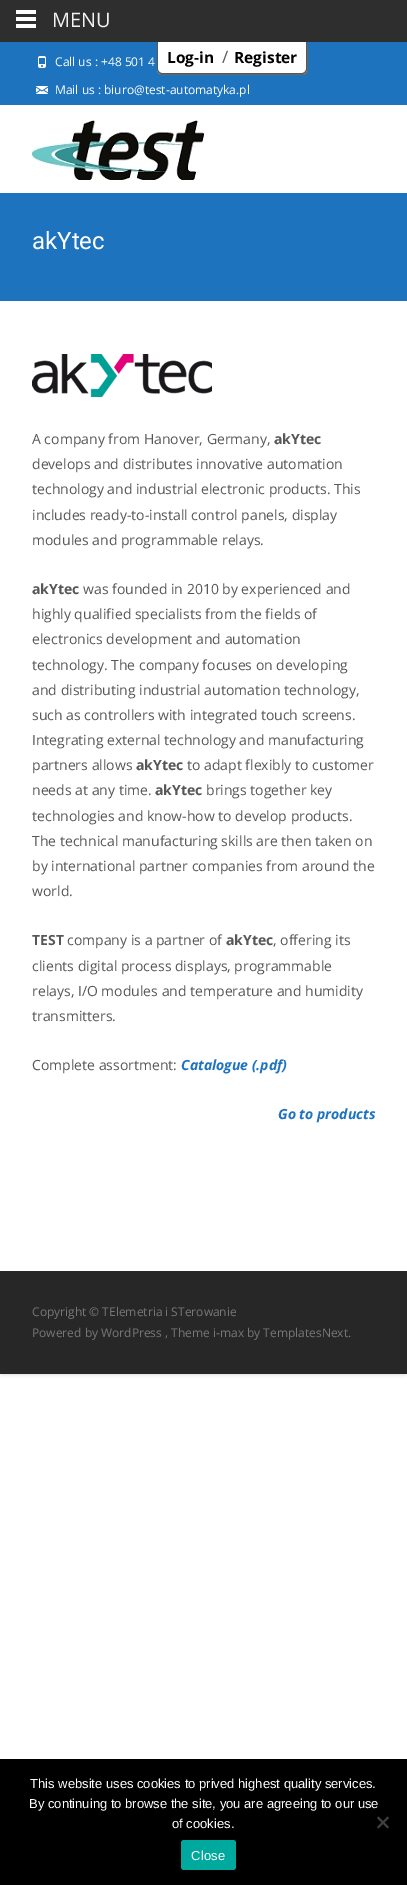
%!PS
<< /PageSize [407 1885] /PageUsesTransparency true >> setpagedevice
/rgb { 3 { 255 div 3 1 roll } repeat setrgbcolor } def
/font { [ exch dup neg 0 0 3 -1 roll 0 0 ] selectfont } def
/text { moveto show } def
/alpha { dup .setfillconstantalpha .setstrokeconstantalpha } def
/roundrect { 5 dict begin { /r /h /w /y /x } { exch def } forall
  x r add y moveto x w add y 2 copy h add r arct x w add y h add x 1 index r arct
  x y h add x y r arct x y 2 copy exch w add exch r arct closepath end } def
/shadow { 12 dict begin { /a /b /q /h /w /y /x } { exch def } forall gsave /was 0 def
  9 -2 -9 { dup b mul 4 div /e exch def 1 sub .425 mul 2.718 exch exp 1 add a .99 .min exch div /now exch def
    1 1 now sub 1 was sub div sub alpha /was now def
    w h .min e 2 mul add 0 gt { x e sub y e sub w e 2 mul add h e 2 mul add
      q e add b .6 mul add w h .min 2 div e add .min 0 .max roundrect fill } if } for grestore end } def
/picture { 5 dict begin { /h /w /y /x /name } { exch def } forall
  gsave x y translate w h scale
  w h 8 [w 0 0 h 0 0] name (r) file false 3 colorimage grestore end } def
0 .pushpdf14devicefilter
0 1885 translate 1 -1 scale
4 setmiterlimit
255 255 255 rgb
0 0 407 1885 rectfill
0 0 0 rgb
0 42 407 1332 2 2 0.1 shadow
0 42 407 1332 2 2 0.1 shadow
46 46 46 rgb
0 0 407 42 rectfill
255 255 255 rgb
16 10 20 4 rectfill
16 17 20 4 rectfill
16 24 20 4 rectfill
30 115 190 rgb
0 42 407 63 rectfill
102 102 102 rgb
158 43 150 32 5 0.5 1 shadow
255 255 255 rgb
157 42 moveto 150 0 rlineto 0 27 rlineto 0 3 -2 5 -5 5 rcurveto -140 0 rlineto -3 0 -5 -2 -5 -5 rcurveto closepath fill
87 87 87 rgb
157 42 moveto 150 0 rlineto 0 27 rlineto 0 3 -2 5 -5 5 rcurveto -140 0 rlineto -3 0 -5 -2 -5 -5 rcurveto closepath 158 42 moveto 148 0 rlineto 0 27 rlineto 0 2 -2 4 -4 4 rcurveto -140 0 rlineto -2 0 -4 -2 -4 -4 rcurveto closepath eofill
255 255 255 rgb
0 105 407 1166 rectfill
(img_01.rgb) 38 56 8 12 picture
(img_02.rgb) 36 86 12 8 picture
(img_03.rgb) 32 120 172 60 picture
30 115 190 rgb
0 193 407 108 rectfill
(img_04.rgb) 32 354 180 43 picture
39 39 39 rgb
0 1271 407 103 rectfill
0 0 0 rgb
0 1759 407 126 rectfill
64 64 64 rgb
387.5 1816.5 moveto 1.5 1.5 rlineto -10.5 10.5 rlineto -1.5 -1.5 rlineto closepath fill
377 1818 moveto 1.5 -1.5 rlineto 10.5 10.5 rlineto -1.5 1.5 rlineto closepath fill
0 169 157 rgb
181 1840 55 30 3 roundrect fill
/OpenSans-Regular 20 font
242 242 242 rgb
(MENU) 52 27 text
/OpenSans-Bold 15.5 font
0 0 0 rgb
(Log-in) 167 63 text
/OpenSans-Regular 17 font
87 87 87 rgb
(/) 222 63 text
/OpenSans-Bold 15.5 font
0 0 0 rgb
(Register) 234 63 text
/OpenSans-Regular 12 font
255 255 255 rgb
(Call us : +48 501 4) 55 66 text
(Mail us : biuro@test-automatyka.pl) 55 94 text
/Roboto-Regular 24 font
(akYtec) 32 249 text
/OpenSans-Regular 14 font
87 87 87 rgb
(A company from Hanover, Germany,) 32 444 text
/OpenSans-Bold 14 font
(akYtec) 274 444 text
/OpenSans-Regular 14 font
(develops and distributes innovative automation) 32 469 text
(technology and industrial electronic products. This) 32 494 text
(includes ready-to-install control panels, display) 32 520 text
(modules and programmable relays.) 32 545 text
/OpenSans-Bold 14 font
(akYtec) 32 594 text
/OpenSans-Regular 14 font
(was founded in 2010 by experienced and) 83 594 text
(highly qualified specialists from the fields of) 32 619 text
(electronics development and automation) 32 644 text
(technology. The company focuses on developing) 32 670 text
(and distributing industrial automation technology,) 32 695 text
(such as controllers with integrated touch screens.) 32 720 text
(Integrating external technology and manufacturing) 32 745 text
(partners allows) 32 770 text
/OpenSans-Bold 14 font
(akYtec) 136 770 text
/OpenSans-Regular 14 font
(to adapt flexibly to customer) 187 770 text
(needs at any time.) 32 795 text
/OpenSans-Bold 14 font
(akYtec) 155 795 text
/OpenSans-Regular 14 font
(brings together key) 206 795 text
(technologies and know-how to develop products.) 32 821 text
(The technical manufacturing skills are then taken on) 32 846 text
(by international partner companies from around the) 32 871 text
(world.) 32 896 text
/OpenSans-Bold 14 font
(TEST) 32 945 text
/OpenSans-Regular 14 font
(company is a partner of) 67 945 text
/OpenSans-Bold 14 font
(akYtec) 226 945 text
/OpenSans-Regular 14 font
(, offering its) 273 945 text
(clients digital process displays, programmable) 32 971 text
(relays, I/O modules and temperature and humidity) 32 996 text
(transmitters.) 32 1021 text
(Complete assortment:) 32 1070 text
/OpenSans-BoldItalic 14 font
30 115 190 rgb
(Catalogue \(.pdf\)) 181 1070 text
(Go to products) 278 1119 text
/OpenSans-Regular 12 font
119 119 119 rgb
(Copyright © TElemetria i STerowanie) 32 1316 text
(Powered by WordPress , Theme i-max by TemplatesNext.) 32 1337 text
/LiberationSans-Regular 13 font
255 255 255 rgb
(This website uses cookies to prived highest quality services.) 30 1788 text
(By continuing to browse the site, you are agreeing to our use) 29 1808 text
(of cookies.) 172 1828 text
191 1860 moveto 0.25 0 (Close) ashow
.poppdf14devicefilter showpage
